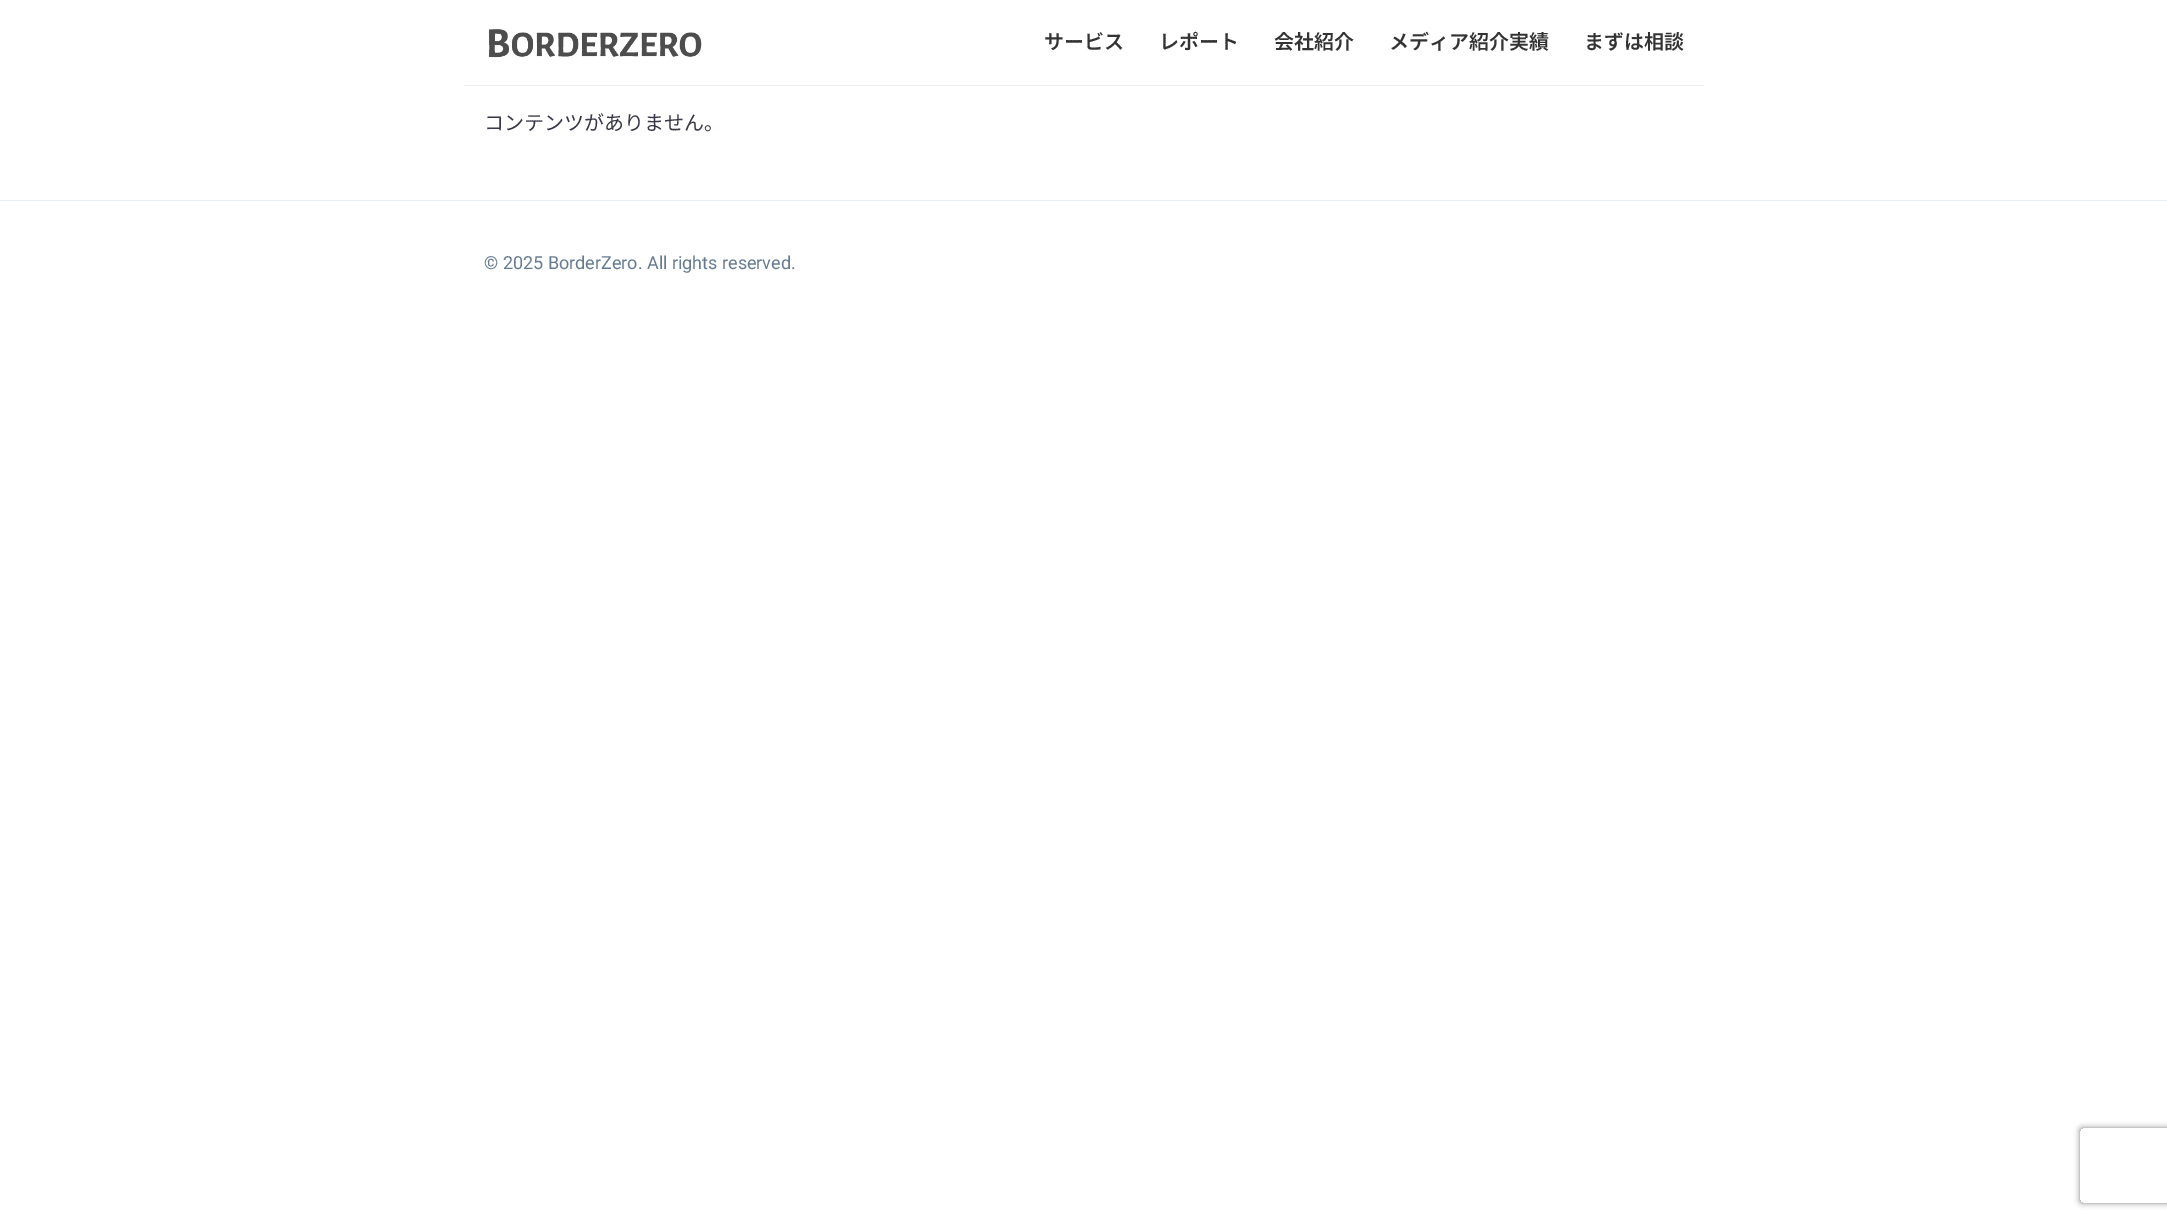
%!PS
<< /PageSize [2167 1220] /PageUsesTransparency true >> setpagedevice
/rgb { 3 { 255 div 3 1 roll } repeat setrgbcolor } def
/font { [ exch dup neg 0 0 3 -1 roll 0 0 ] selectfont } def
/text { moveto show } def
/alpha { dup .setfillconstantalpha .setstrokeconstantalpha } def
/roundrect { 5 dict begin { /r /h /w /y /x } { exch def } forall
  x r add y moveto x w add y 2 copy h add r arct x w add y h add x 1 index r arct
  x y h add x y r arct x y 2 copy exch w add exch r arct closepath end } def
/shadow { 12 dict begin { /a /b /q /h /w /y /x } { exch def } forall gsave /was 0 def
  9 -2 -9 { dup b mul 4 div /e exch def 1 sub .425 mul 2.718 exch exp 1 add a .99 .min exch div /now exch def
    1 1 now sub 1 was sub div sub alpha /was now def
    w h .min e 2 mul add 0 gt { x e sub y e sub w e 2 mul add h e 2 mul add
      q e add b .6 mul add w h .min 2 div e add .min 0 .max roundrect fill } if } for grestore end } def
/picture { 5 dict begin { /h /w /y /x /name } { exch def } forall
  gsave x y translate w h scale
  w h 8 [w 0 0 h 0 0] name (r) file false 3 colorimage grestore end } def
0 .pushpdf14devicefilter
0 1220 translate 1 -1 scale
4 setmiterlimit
255 255 255 rgb
0 0 2167 1220 rectfill
238 238 238 rgb
464 85 1240 1 rectfill
(img_01.rgb) 488 29 214 29 picture
231 238 245 rgb
0 200 2167 1 rectfill
gsave
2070 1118 moveto 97 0 rlineto 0 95 rlineto -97 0 rlineto closepath 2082.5 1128 moveto 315 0 rlineto 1.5 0 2.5 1 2.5 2.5 rcurveto 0 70 rlineto 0 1.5 -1 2.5 -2.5 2.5 rcurveto -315 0 rlineto -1.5 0 -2.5 -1 -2.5 -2.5 rcurveto 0 -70 rlineto 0 -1.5 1 -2.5 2.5 -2.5 rcurveto closepath eoclip newpath
128 128 128 rgb
2080 1128 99 75 2.5 3 1 shadow
grestore
/NotoSansJP-SemiBold 20 font
51 51 51 rgb
(サービス) 1044 49 text
(レポート) 1159 49 text
(会社紹介) 1274 49 text
(メディア紹介実績) 1389 49 text
(まずは相談) 1584 49 text
/NotoSansJP-Regular 20 font
56 56 71 rgb
(コンテンツがありません。) 484 130 text
/Roboto-Regular 18 font
102 123 145 rgb
(© 2025 BorderZero. All rights reserved.) 484 269 text
.poppdf14devicefilter showpage
